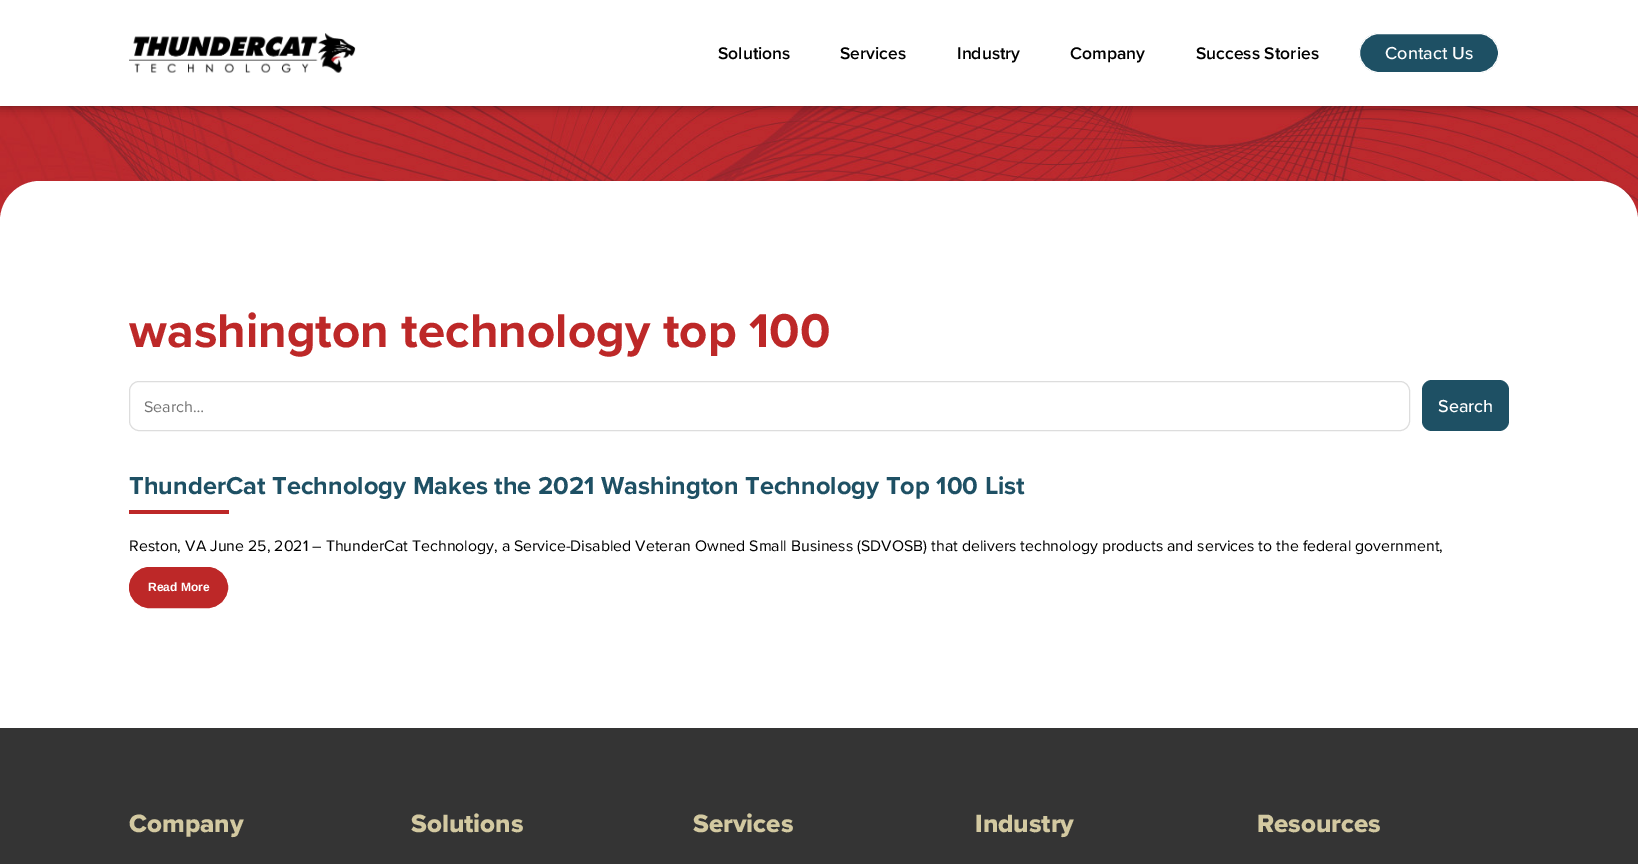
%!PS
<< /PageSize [1638 864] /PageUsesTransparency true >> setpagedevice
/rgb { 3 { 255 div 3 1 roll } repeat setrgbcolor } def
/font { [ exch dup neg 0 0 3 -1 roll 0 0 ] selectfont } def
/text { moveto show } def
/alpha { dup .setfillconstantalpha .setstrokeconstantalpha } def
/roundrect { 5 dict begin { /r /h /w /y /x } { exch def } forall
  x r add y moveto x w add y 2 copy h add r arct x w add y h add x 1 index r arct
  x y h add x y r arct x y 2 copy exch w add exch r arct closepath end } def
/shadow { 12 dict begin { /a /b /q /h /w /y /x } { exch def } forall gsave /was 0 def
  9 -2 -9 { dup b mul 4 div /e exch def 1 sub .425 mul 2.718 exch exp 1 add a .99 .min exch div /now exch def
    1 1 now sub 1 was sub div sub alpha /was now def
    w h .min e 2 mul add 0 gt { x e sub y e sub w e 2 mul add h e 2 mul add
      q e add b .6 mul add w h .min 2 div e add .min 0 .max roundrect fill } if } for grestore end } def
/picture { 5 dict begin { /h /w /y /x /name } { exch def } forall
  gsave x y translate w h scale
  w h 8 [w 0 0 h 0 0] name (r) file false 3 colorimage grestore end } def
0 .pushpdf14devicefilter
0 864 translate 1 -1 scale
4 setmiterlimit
255 255 255 rgb
0 0 1638 864 rectfill
(img_02.rgb) 0 106 1638 115 picture
0 0 0 rgb
0 0 1638 106 0 5 0.5 shadow
255 255 255 rgb
0 0 1638 106 rectfill
(img_01.rgb) 129 33 227 40 picture
30 80 100 rgb
1359.5 33.5 139 39 19.5 roundrect gsave fill grestore
255 255 255 rgb
stroke
40 181 moveto 1558 0 rlineto 22 0 40 18 40 40 rcurveto 0 407 rlineto -1638 0 rlineto 0 -407 rlineto 0 -22 18 -40 40 -40 rcurveto closepath fill
221 221 221 rgb
129.5 381.5 1280 49 9.5 roundrect stroke
30 80 100 rgb
1422 380 87 51 10 roundrect fill
189 40 40 rgb
129 510 100 4 rectfill
129.5 567.5 98 40 20 roundrect gsave fill grestore
stroke
52 52 52 rgb
0 728 1638 136 rectfill
/ProximaNova-SemiBold 17.5 font
0 0 0 rgb
(Solutions) 718 59 text
(Services) 840 59 text
(Industry) 957 59 text
(Company) 1070 59 text
(Success Stories) 1196 59 text
/ProximaNova-Medium 18 font
255 255 255 rgb
(Contact Us) 1385 59 text
/ProximaNova-Bold 49.25 font
189 40 40 rgb
(washington technology top 100) 129 347 text
/ProximaNova-Regular 16 font
117 117 117 rgb
(Search…) 144 412 text
/ProximaNova-Medium 18 font
255 255 255 rgb
(Search) 1438 412 text
/ProximaNova-Bold 25.35 font
30 80 100 rgb
(ThunderCat Technology Makes the 2021 Washington Technology Top 100 List) 129 494 text
/ProximaNova-Regular 15.85 font
0 0 0 rgb
(Reston, VA June 25, 2021 – ThunderCat Technology, a Service-Disabled Veteran Owned Small Business \(SDVOSB\) that delivers technology products and services to the federal government,) 129 551 text
/LiberationSans-Bold 12 font
255 255 255 rgb
(Read More) 148 591 text
/ProximaNova-ExtraBold 26 font
211 201 161 rgb
(Company) 129 832 text
(Solutions) 411 832 text
(Services) 693 832 text
(Industry) 975 832 text
(Resources) 1257 832 text
.poppdf14devicefilter showpage
